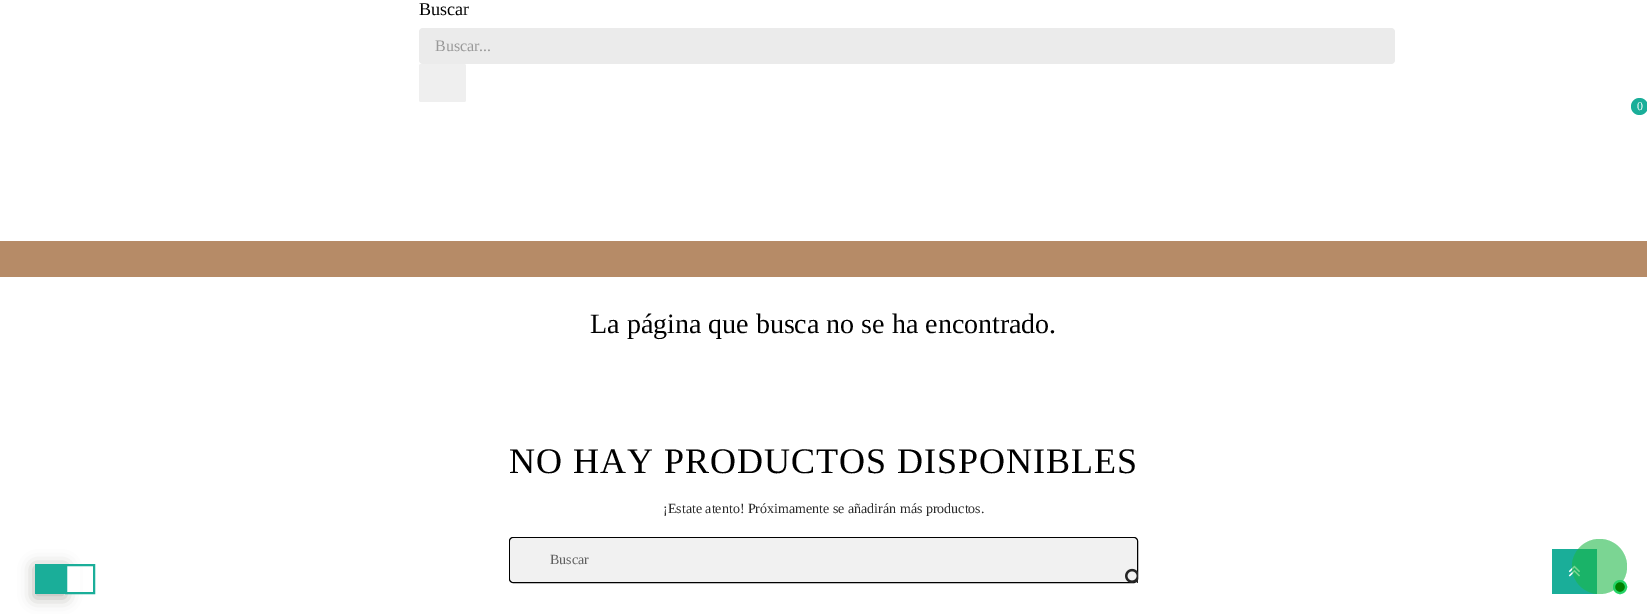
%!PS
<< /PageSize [1647 614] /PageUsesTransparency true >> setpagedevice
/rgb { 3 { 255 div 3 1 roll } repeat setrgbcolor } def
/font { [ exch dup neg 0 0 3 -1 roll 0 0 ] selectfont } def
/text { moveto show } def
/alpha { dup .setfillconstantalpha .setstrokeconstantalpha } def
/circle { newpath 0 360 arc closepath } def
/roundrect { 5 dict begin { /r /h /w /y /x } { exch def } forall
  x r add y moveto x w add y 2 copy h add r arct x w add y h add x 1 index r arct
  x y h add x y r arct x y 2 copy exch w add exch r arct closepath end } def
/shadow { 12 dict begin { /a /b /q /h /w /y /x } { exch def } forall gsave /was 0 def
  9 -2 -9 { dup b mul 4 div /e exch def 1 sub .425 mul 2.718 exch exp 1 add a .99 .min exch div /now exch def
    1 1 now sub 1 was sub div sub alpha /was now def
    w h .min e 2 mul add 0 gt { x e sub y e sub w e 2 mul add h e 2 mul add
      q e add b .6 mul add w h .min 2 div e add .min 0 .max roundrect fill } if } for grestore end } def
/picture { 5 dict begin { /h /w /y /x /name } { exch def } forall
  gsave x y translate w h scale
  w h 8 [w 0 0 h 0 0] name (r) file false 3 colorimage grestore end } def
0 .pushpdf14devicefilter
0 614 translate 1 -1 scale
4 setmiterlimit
255 255 255 rgb
0 0 1647 614 rectfill
235 235 235 rgb
419 28 976 36 4 roundrect fill
239 239 239 rgb
419 64 47 38 2 roundrect fill
26 174 153 rgb
1639.5 106.5 8.5 circle fill
182 139 103 rgb
0 241 1647 36 rectfill
0 0 0 rgb
509.5 537.5 628 45 3.5 roundrect stroke
241 241 241 rgb
510 538 627 44 5 roundrect fill
(img_01.rgb) 1125 568 13 15 picture
26 174 153 rgb
1552 549 45 45 rectfill
(img_02.rgb) 1568 565 12 12 picture
0.25 alpha
26 183 68 rgb
1599.5 566.5 27.5 circle fill
1599.5 566.5 27.5 circle fill
1599.5 566.5 27.5 circle fill
1 alpha
0 128 0 rgb
1620 587 6 circle gsave fill grestore
37 211 102 rgb
2 setlinewidth
stroke
142 137 130 rgb
34 566 32 32 0 7.5 0.62 shadow
26 174 153 rgb
35 564 30 30 rectfill
255 255 255 rgb
67 566 13 26 rectfill
26 174 153 rgb
66 565 28 28 rectstroke
/LiberationSerif-Regular 18 font
0 0 0 rgb
(Buscar) 419 15 text
/LiberationSerif-Regular 16 font
153 153 153 rgb
(Buscar...) 435 51 text
/LiberationSerif-Regular 12 font
255 255 255 rgb
(0) 1637 110 text
/LiberationSerif-Regular 28 font
0 0 0 rgb
(La página que busca no se ha encontrado.) 590 333 text
/LiberationSerif-Regular 36 font
509 473 moveto 1 0 (NO HAY PRODUCTOS DISPONIBLES) ashow
/LiberationSerif-Regular 14 font
42 42 42 rgb
(¡Estate atento! Próximamente se añadirán más productos.) 663 513 text
96 96 96 rgb
(Buscar) 550 564 text
.poppdf14devicefilter showpage
